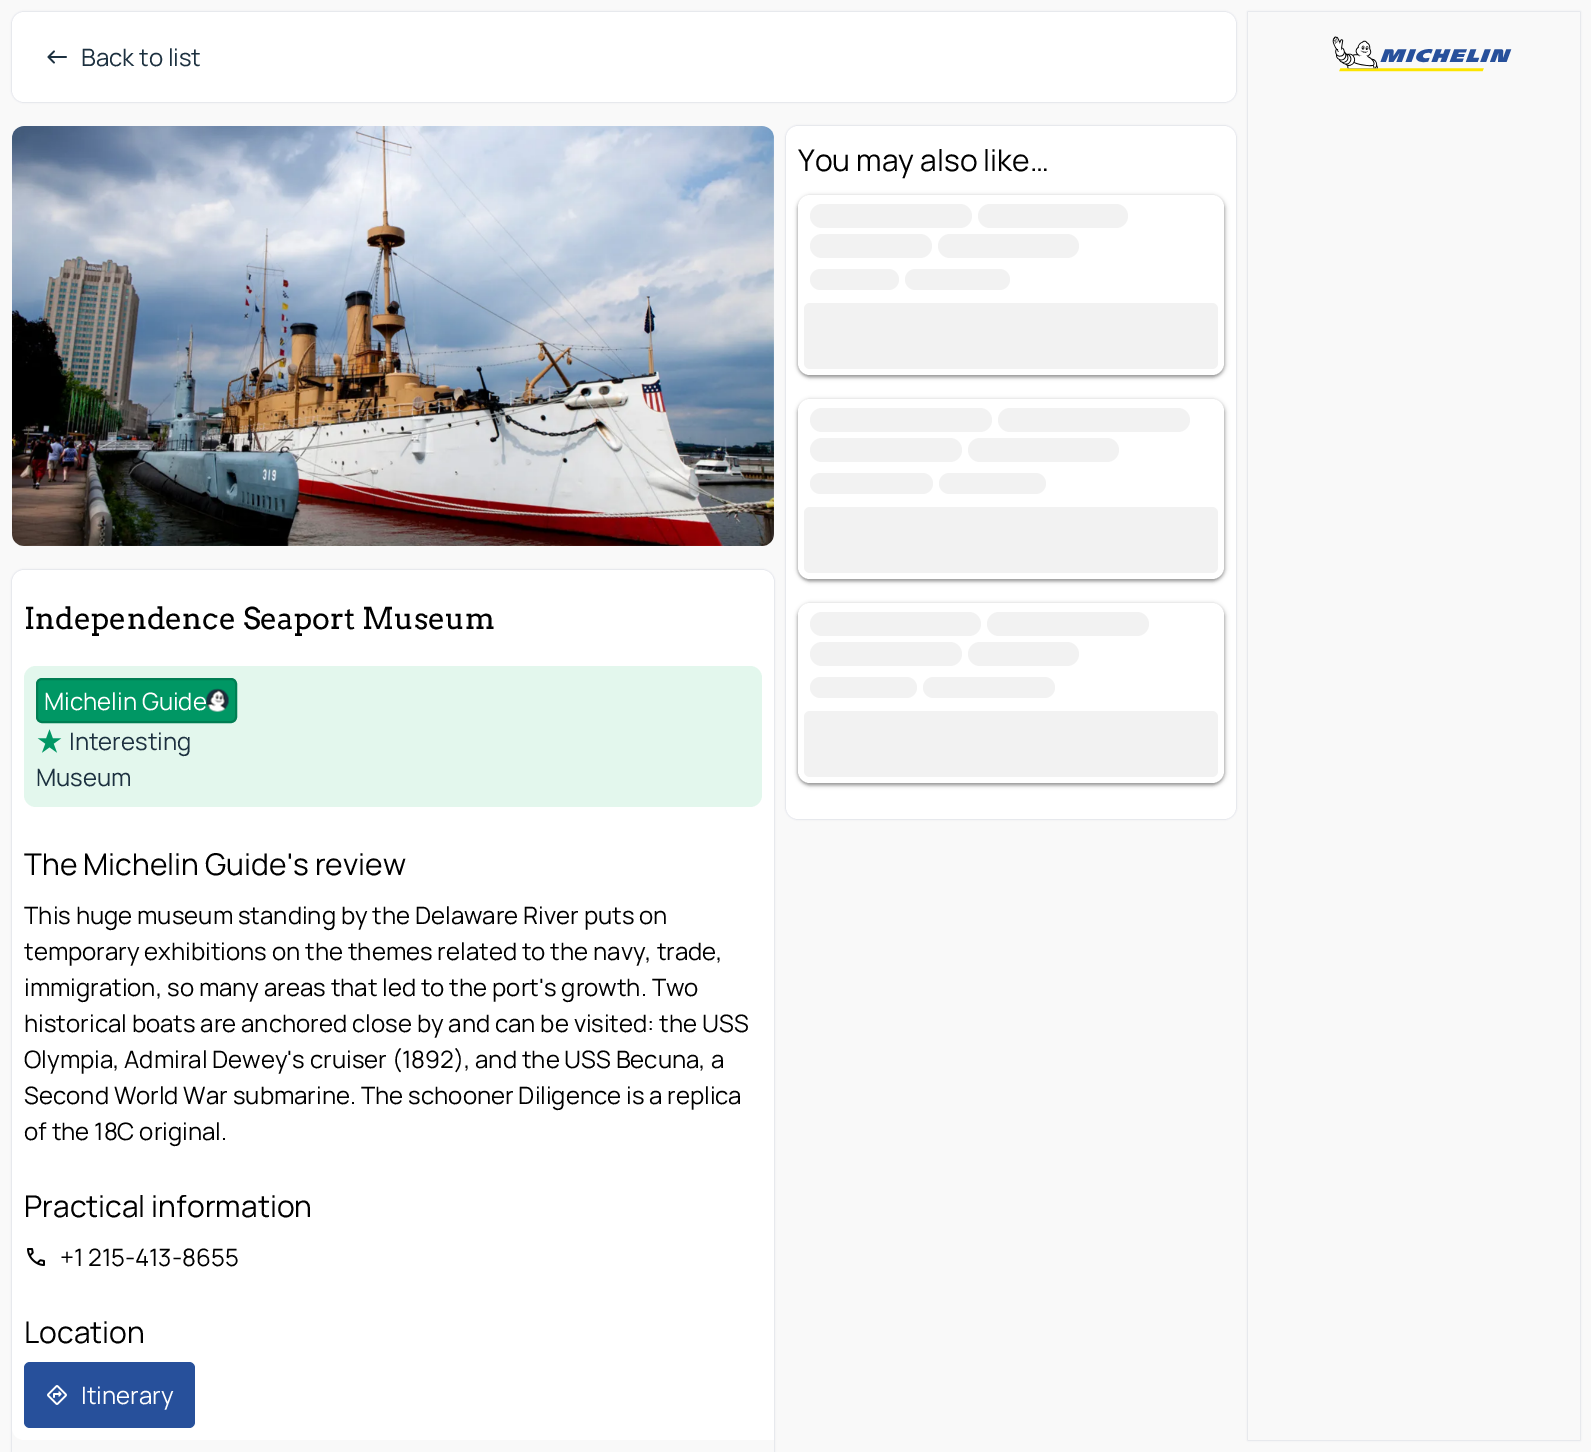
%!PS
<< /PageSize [1591 1452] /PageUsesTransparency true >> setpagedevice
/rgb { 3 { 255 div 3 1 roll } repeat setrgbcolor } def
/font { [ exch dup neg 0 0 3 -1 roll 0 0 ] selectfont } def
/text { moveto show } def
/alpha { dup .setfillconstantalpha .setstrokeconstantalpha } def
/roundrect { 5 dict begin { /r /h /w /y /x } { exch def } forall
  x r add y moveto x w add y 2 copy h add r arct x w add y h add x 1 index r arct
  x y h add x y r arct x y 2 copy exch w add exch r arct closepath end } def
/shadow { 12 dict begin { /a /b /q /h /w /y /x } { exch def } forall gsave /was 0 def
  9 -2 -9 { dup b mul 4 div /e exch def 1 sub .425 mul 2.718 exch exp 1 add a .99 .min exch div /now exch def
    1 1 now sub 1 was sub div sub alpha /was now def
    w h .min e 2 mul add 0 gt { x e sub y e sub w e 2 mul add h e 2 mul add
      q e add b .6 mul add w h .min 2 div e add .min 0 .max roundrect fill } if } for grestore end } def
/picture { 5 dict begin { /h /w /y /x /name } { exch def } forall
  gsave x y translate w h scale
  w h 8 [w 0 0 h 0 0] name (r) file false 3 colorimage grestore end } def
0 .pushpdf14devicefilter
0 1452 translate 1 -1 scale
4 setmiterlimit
249 249 249 rgb
0 0 1591 1452 rectfill
12 26 75 rgb
12 12 1224 90 12 1 0.24 shadow
255 255 255 rgb
12 12 1224 90 12 roundrect fill
(img_01.rgb) 47 50 20 14 picture
12 26 75 rgb
786 126 450 693 12 1 0.24 shadow
255 255 255 rgb
786 126 450 693 12 roundrect fill
0 0 0 rgb
798 197 426 180 12 1.5 0.3 shadow
797 195 429 183 14 2 0.15 shadow
255 255 255 rgb
798 195 426 180 12 roundrect fill
242 242 242 rgb
810 204 162 24 12 roundrect fill
978 204 150 24 12 roundrect fill
810 234 122 24 12 roundrect fill
938 234 141 24 12 roundrect fill
810 269 89 21 10.5 roundrect fill
905 269 105 21 10.5 roundrect fill
804 303 414 66 6 roundrect fill
0 0 0 rgb
798 401 426 180 12 1.5 0.3 shadow
797 399 429 183 14 2 0.15 shadow
255 255 255 rgb
798 399 426 180 12 roundrect fill
242 242 242 rgb
810 408 182 24 12 roundrect fill
998 408 192 24 12 roundrect fill
810 438 152 24 12 roundrect fill
968 438 151 24 12 roundrect fill
810 473 123 21 10.5 roundrect fill
939 473 107 21 10.5 roundrect fill
804 507 414 66 6 roundrect fill
0 0 0 rgb
798 605 426 180 12 1.5 0.3 shadow
797 603 429 183 14 2 0.15 shadow
255 255 255 rgb
798 603 426 180 12 roundrect fill
242 242 242 rgb
810 612 171 24 12 roundrect fill
987 612 162 24 12 roundrect fill
810 642 152 24 12 roundrect fill
968 642 111 24 12 roundrect fill
810 677 107 21 10.5 roundrect fill
923 677 132 21 10.5 roundrect fill
804 711 414 66 6 roundrect fill
(img_02.rgb) 12 126 762 420 picture
gsave
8 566 moveto 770 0 rlineto 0 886 rlineto -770 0 rlineto closepath 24 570 moveto 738 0 rlineto 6.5 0 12 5.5 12 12 rcurveto 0 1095 rlineto 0 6.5 -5.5 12 -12 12 rcurveto -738 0 rlineto -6.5 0 -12 -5.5 -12 -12 rcurveto 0 -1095 rlineto 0 -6.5 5.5 -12 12 -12 rcurveto closepath eoclip newpath
12 26 75 rgb
12 570 762 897 12 1 0.24 shadow
grestore
255 255 255 rgb
24 570 moveto 738 0 rlineto 6.5 0 12 5.5 12 12 rcurveto 0 858 rlineto -750 0 rlineto -6.5 0 -12 -5.5 -12 -12 rcurveto 0 -846 rlineto 0 -6.5 5.5 -12 12 -12 rcurveto closepath fill
227 247 237 rgb
24 666 738 141 12 roundrect fill
0 151 100 rgb
37 679 199 43 5 roundrect gsave fill grestore
0 126 83 rgb
2 setlinewidth
stroke
(img_03.rgb) 206 688 23 24 picture
(img_04.rgb) 37 729 25 24 picture
(img_05.rgb) 27 1248 18 18 picture
39 80 155 rgb
24 1362 171 66 6 roundrect fill
(img_06.rgb) 47 1385 20 20 picture
gsave
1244 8 moveto 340 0 rlineto 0 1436 rlineto -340 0 rlineto closepath 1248 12 moveto 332 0 rlineto 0 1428 rlineto -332 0 rlineto closepath eoclip newpath
12 26 75 rgb
1248 12 332 1428 0 1 0.24 shadow
grestore
(img_07.rgb) 1332 36 180 36 picture
/Manrope-ExtraLight 24 font
29 49 64 rgb
(Back to list) 81 66 text
/Manrope-ExtraLight 30 font
0 0 0 rgb
(You may also like…) 798 171 text
/Arvo-Regular 30 font
(Independence Seaport Museum) 24 629 text
/Manrope-ExtraLight 24 font
255 255 255 rgb
(Michelin Guide) 44 710 text
29 49 64 rgb
(Interesting) 69 750 text
(Museum) 36 786 text
/Manrope-ExtraLight 30 font
0 0 0 rgb
(The Michelin Guide's review) 24 875 text
/Manrope-ExtraLight 24 font
(This huge museum standing by the Delaware River puts on) 24 924 text
(temporary exhibitions on the themes related to the navy, trade,) 24 960 text
(immigration, so many areas that led to the port's growth. Two) 24 996 text
(historical boats are anchored close by and can be visited: the USS) 24 1032 text
(Olympia, Admiral Dewey's cruiser \(1892\), and the USS Becuna, a) 24 1068 text
(Second World War submarine. The schooner Diligence is a replica) 24 1104 text
(of the 18C original.) 24 1140 text
/Manrope-ExtraLight 30 font
(Practical information) 24 1217 text
/Manrope-ExtraLight 24 font
(+1 215-413-8655) 60 1266 text
/Manrope-ExtraLight 30 font
(Location) 24 1343 text
/Manrope-ExtraLight 24 font
255 255 255 rgb
(Itinerary) 81 1404 text
.poppdf14devicefilter showpage
